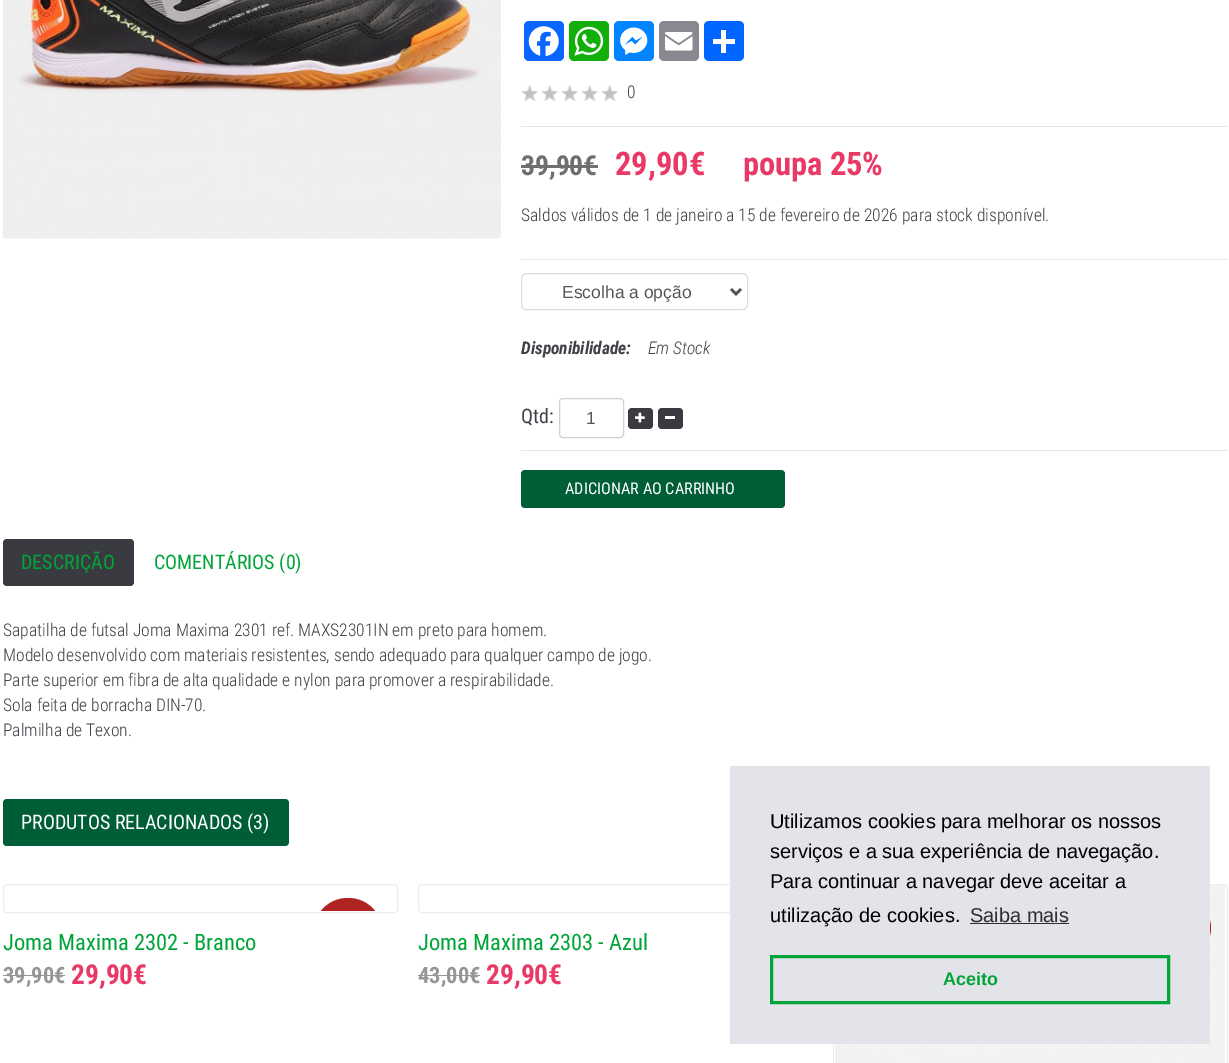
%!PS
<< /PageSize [1229 1063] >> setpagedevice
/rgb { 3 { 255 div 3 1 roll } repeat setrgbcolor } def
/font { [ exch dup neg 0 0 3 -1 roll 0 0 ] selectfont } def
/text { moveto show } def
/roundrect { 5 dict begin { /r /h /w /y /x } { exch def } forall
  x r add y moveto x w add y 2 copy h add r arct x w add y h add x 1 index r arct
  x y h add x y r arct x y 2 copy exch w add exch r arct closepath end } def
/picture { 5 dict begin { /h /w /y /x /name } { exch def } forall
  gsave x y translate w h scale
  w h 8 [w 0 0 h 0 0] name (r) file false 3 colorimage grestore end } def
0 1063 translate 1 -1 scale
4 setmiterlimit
255 255 255 rgb
0 0 1229 1063 rectfill
(img_01.rgb) 2 0 499 239 picture
8 102 255 rgb
524 21 40 40 5 roundrect fill
(img_02.rgb) 528 26 31 31 picture
18 175 10 rgb
569 21 40 40 5 roundrect fill
(img_03.rgb) 574 26 30 30 picture
0 132 255 rgb
614 21 40 40 5 roundrect fill
(img_04.rgb) 620 27 28 28 picture
136 137 144 rgb
659 21 40 40 5 roundrect fill
(img_05.rgb) 665 32 28 19 picture
1 102 255 rgb
704 21 40 40 5 roundrect fill
255 255 255 rgb
721 30 5 23 rectfill
713 39 22 5 rectfill
(img_06.rgb) 521 85 97 16 picture
229 229 229 rgb
521 126 707 1 rectfill
110 111 112 rgb
521 165 77 3 rectfill
231 231 231 rgb
521 259 707 1 rectfill
220 220 220 rgb
521.5 273.5 226 36 4.5 roundrect stroke
85 85 85 rgb
2.5 setlinewidth
731 289 moveto 5 5 rlineto 5 -5 rlineto stroke
229 229 229 rgb
521 450 707 1 rectfill
208 208 208 rgb
1 setlinewidth
559.5 398.5 64 39 3.5 roundrect stroke
57 59 64 rgb
628 408 25 21 4 roundrect fill
(img_07.rgb) 635 412 10 11 picture
658 408 25 21 4 roundrect fill
255 255 255 rgb
665 416 10 3 rectfill
0 94 54 rgb
521 470 264 38 4 roundrect fill
57 59 64 rgb
3 539 131 47 4 roundrect fill
0 94 54 rgb
3 799 286 47 4 roundrect fill
237 237 237 rgb
3.5 884.5 394 28 3.5 roundrect stroke
176 35 35 rgb
348 898 moveto 11 0 21 5 27 13 rcurveto -54 0 rlineto 6 -8 16 -13 27 -13 rcurveto closepath fill
150 150 150 rgb
3 975 62 1 rectfill
237 237 237 rgb
418.5 884.5 394 28 3.5 roundrect stroke
150 150 150 rgb
418 975 62 1 rectfill
237 237 237 rgb
833.5 884.5 394 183 3.5 roundrect stroke
(img_08.rgb) 834 885 391 178 picture
176 35 35 rgb
1178 897.5 moveto 18 0 33 13.5 33 30.5 rcurveto 0 17 -15 30.5 -33 30.5 rcurveto -18 0 -33 -13.5 -33 -30.5 rcurveto 0 -17 15 -30.5 33 -30.5 rcurveto closepath fill
227 228 233 rgb
730 766 480 278 rectfill
45 46 47 rgb
970 923 99 1 rectfill
0 164 56 rgb
3 setlinewidth
771.5 956.5 397 46 rectstroke
/RobotoCondensed-Light 17.5 font
64 66 71 rgb
(0) 627 98 text
/RobotoCondensed-Bold 27.5 font
110 111 112 rgb
(39,90€) 521 175 text
/RobotoCondensed-Bold 32.5 font
233 58 103 rgb
(29,90€     poupa 25%) 615 175 text
/RobotoCondensed-Light 17.5 font
64 66 71 rgb
(Saldos válidos de 1 de janeiro a 15 de fevereiro de 2026 para stock disponível.) 521 221 text
/LiberationSans-Regular 17.5 font
85 85 85 rgb
(Escolha a opção) 562 298 text
/RobotoCondensed-BoldItalic 17.5 font
64 66 71 rgb
(Disponibilidade:) 521 354 text
/RobotoCondensed-LightItalic 17.5 font
(Em Stock) 648 354 text
/RobotoCondensed-Regular 20 font
(Qtd:) 521 423 text
/LiberationSans-Regular 17.5 font
85 85 85 rgb
(1) 586 424 text
/RobotoCondensed-Regular 16.25 font
255 255 255 rgb
(ADICIONAR AO CARRINHO) 565 494 text
/RobotoCondensed-Regular 20 font
0 164 56 rgb
(DESCRIÇÃO) 21 569 text
(COMENTÁRIOS \(0\)) 154 569 text
/RobotoCondensed-Light 17.5 font
64 66 71 rgb
(Sapatilha de futsal Joma Maxima 2301 ref. MAXS2301IN em preto para homem.) 3 636 text
(Modelo desenvolvido com materiais resistentes, sendo adequado para qualquer campo de jogo.) 3 661 text
(Parte superior em fibra de alta qualidade e nylon para promover a respirabilidade.) 3 686 text
(Sola feita de borracha DIN-70.) 3 711 text
(Palmilha de Texon.) 3 736 text
/RobotoCondensed-Regular 20 font
255 255 255 rgb
(PRODUTOS RELACIONADOS \(3\)) 21 829 text
/RobotoCondensed-Regular 22.5 font
0 164 56 rgb
(Joma Maxima 2302 - Branco) 3 950 text
/RobotoCondensed-Bold 22.5 font
150 150 150 rgb
(39,90€) 3 983 text
/RobotoCondensed-Bold 27.5 font
233 58 103 rgb
(29,90€) 71 984 text
/RobotoCondensed-Regular 22.5 font
0 164 56 rgb
(Joma Maxima 2303 - Azul) 418 950 text
/RobotoCondensed-Bold 22.5 font
150 150 150 rgb
(43,00€) 418 983 text
/RobotoCondensed-Bold 27.5 font
233 58 103 rgb
(29,90€) 486 984 text
/LiberationSans-Regular 20 font
0 0 0 rgb
(Utilizamos cookies para melhorar os nossos) 770 828 text
(serviços e a sua experiência de navegação.) 770 858 text
(Para continuar a navegar deve aceitar a) 770 888 text
(utilização de cookies.) 770 922 text
45 46 47 rgb
(Saiba mais) 970 922 text
/LiberationSans-Bold 18 font
0 164 56 rgb
(Aceito) 943 985 text
showpage
